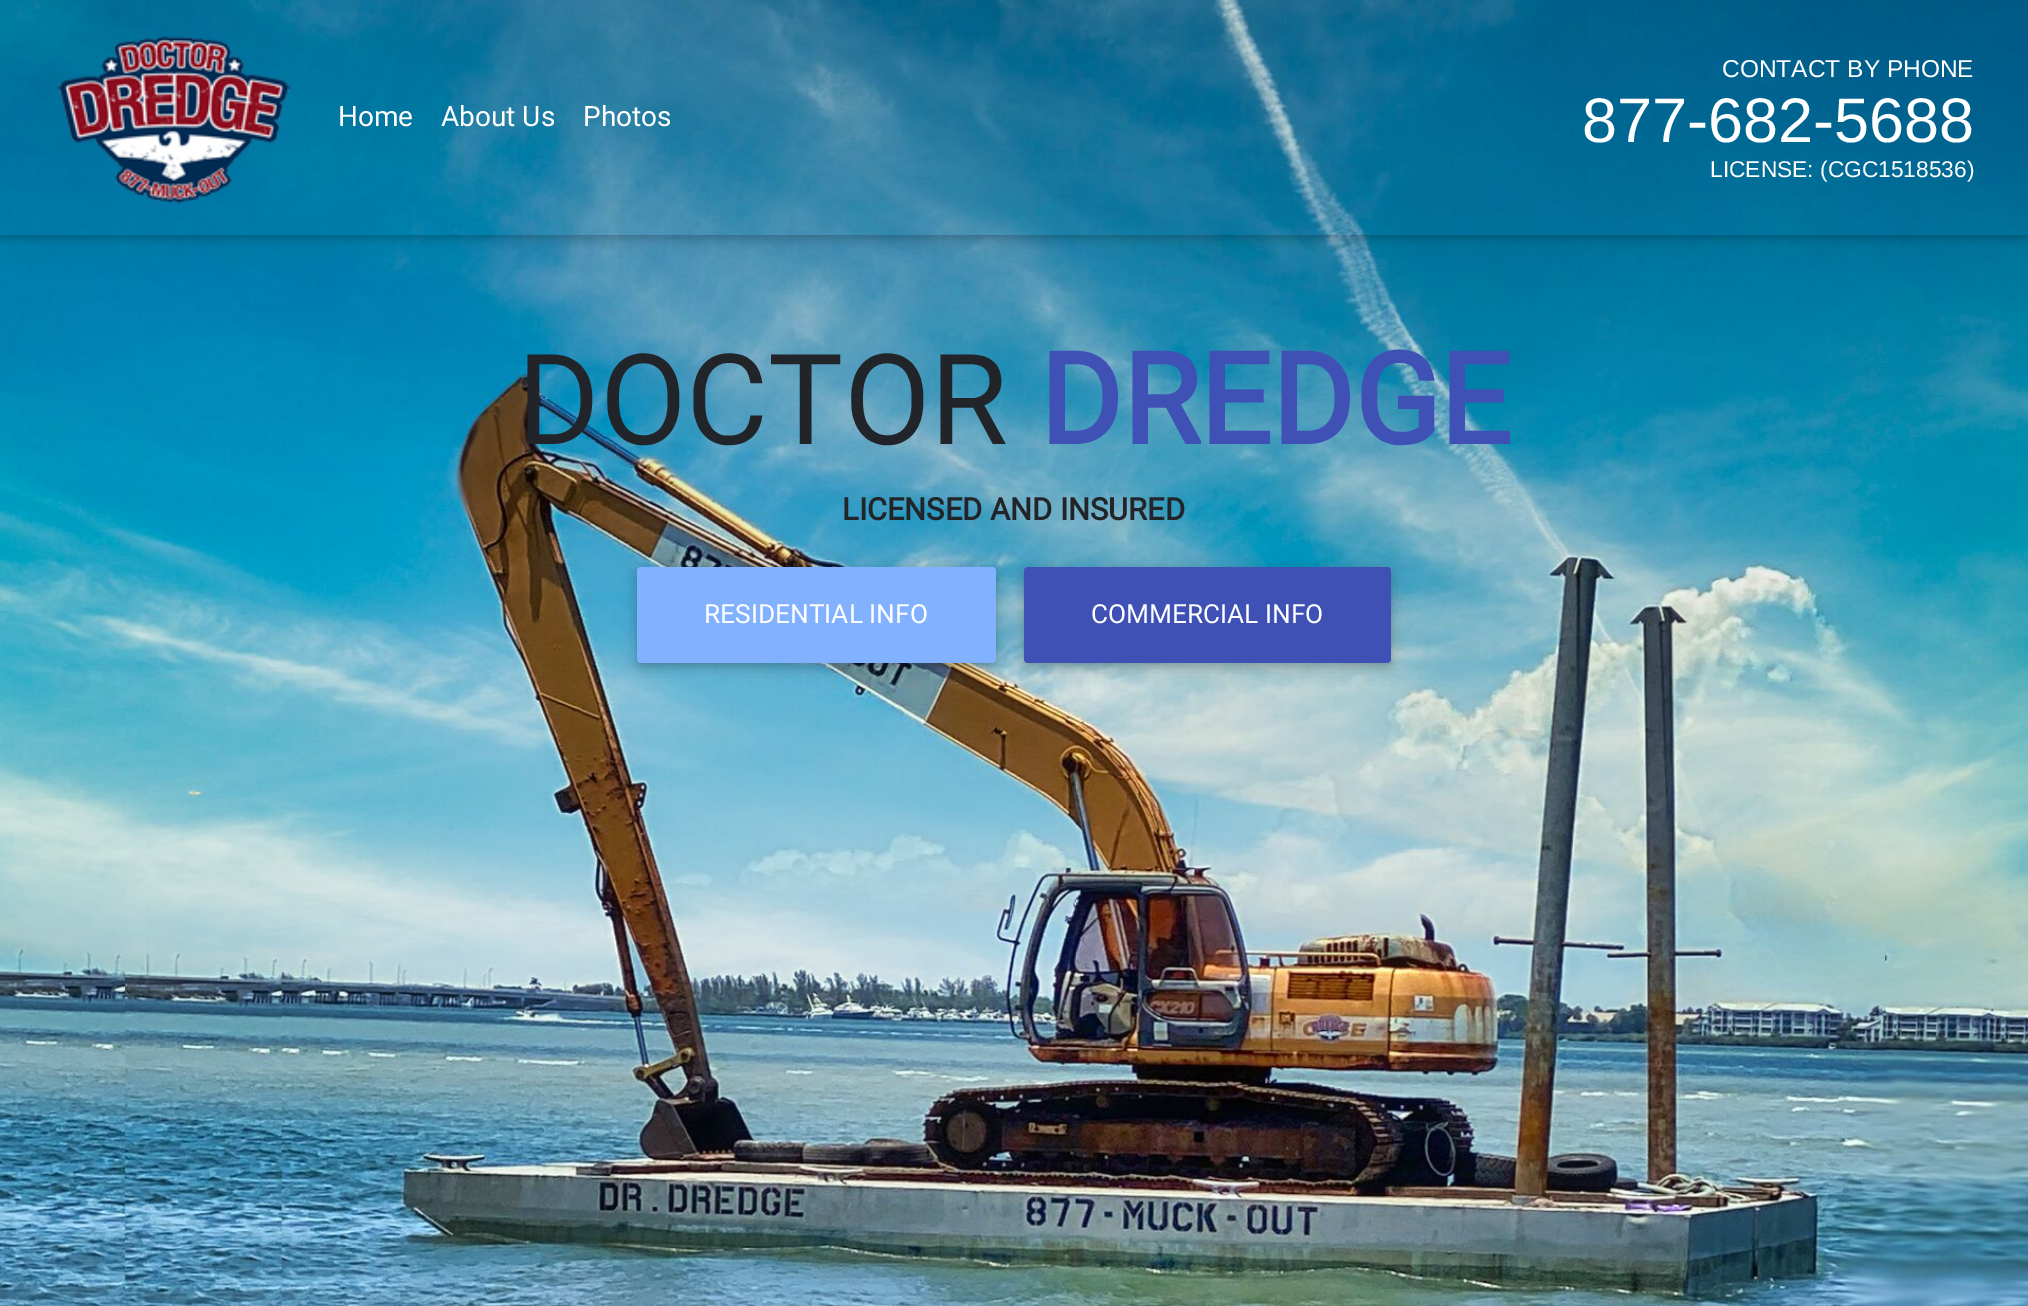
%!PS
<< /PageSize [2028 1306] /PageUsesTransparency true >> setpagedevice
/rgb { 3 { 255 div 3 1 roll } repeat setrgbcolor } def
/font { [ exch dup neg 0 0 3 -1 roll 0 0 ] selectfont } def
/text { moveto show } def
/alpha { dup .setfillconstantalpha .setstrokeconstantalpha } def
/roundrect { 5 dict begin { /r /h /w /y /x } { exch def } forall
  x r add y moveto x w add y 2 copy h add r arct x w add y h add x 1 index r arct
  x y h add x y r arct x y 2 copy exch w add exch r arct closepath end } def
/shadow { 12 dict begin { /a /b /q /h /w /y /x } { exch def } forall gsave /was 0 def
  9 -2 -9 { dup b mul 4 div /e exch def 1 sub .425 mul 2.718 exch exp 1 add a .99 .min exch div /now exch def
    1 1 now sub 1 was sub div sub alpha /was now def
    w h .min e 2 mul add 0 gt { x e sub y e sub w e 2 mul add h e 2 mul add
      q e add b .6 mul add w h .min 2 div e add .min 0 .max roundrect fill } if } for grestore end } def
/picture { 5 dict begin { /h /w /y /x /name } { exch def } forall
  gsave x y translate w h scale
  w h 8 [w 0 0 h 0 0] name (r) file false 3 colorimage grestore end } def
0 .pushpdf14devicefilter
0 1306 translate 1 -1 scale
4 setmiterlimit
255 255 255 rgb
0 0 2028 1306 rectfill
(img_02.rgb) 0 0 2028 1306 picture
gsave
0 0 moveto 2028 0 rlineto 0 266 rlineto -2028 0 rlineto closepath 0 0 moveto 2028 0 rlineto 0 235 rlineto -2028 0 rlineto closepath eoclip newpath
0 0 0 rgb
0 4 2028 234 0 9 0.12 shadow
grestore
gsave
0 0 moveto 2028 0 rlineto 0 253 rlineto -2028 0 rlineto closepath 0 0 moveto 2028 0 rlineto 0 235 rlineto -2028 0 rlineto closepath eoclip newpath
0 0 0 rgb
0 4 2028 234 0 4.5 0.16 shadow
grestore
(img_01.rgb) 57 36 234 168 picture
0 0 0 rgb
637 571 359 96 4 9 0.12 shadow
637 571 359 96 4 4.5 0.16 shadow
130 177 255 rgb
637 567 359 96 4 roundrect fill
0 0 0 rgb
1024 571 367 96 4 9 0.12 shadow
1024 571 367 96 4 4.5 0.16 shadow
63 81 181 rgb
1024 567 367 96 4 roundrect fill
/Roboto-Regular 28 font
255 255 255 rgb
(Home) 338 126 text
(About Us) 441 126 text
(Photos) 583 126 text
/LiberationSans-Regular 24.5 font
(CONTACT BY PHONE) 1722 77 text
/LiberationSans-Regular 63 font
(877-682-5688) 1582 142 text
/LiberationSans-Regular 22.75 font
(LICENSE: \(CGC1518536\)) 1710 177 text
/Roboto-Regular 126 font
33 37 41 rgb
(DOCTOR) 517 444 text
/Roboto-Bold 126 font
63 81 181 rgb
(DREDGE) 1039 444 text
/Roboto-Bold 30.75 font
33 37 41 rgb
(LICENSED AND INSURED) 842 520 text
/Roboto-Regular 26.25 font
255 255 255 rgb
(RESIDENTIAL INFO) 704 623 text
(COMMERCIAL INFO) 1091 623 text
.poppdf14devicefilter showpage
